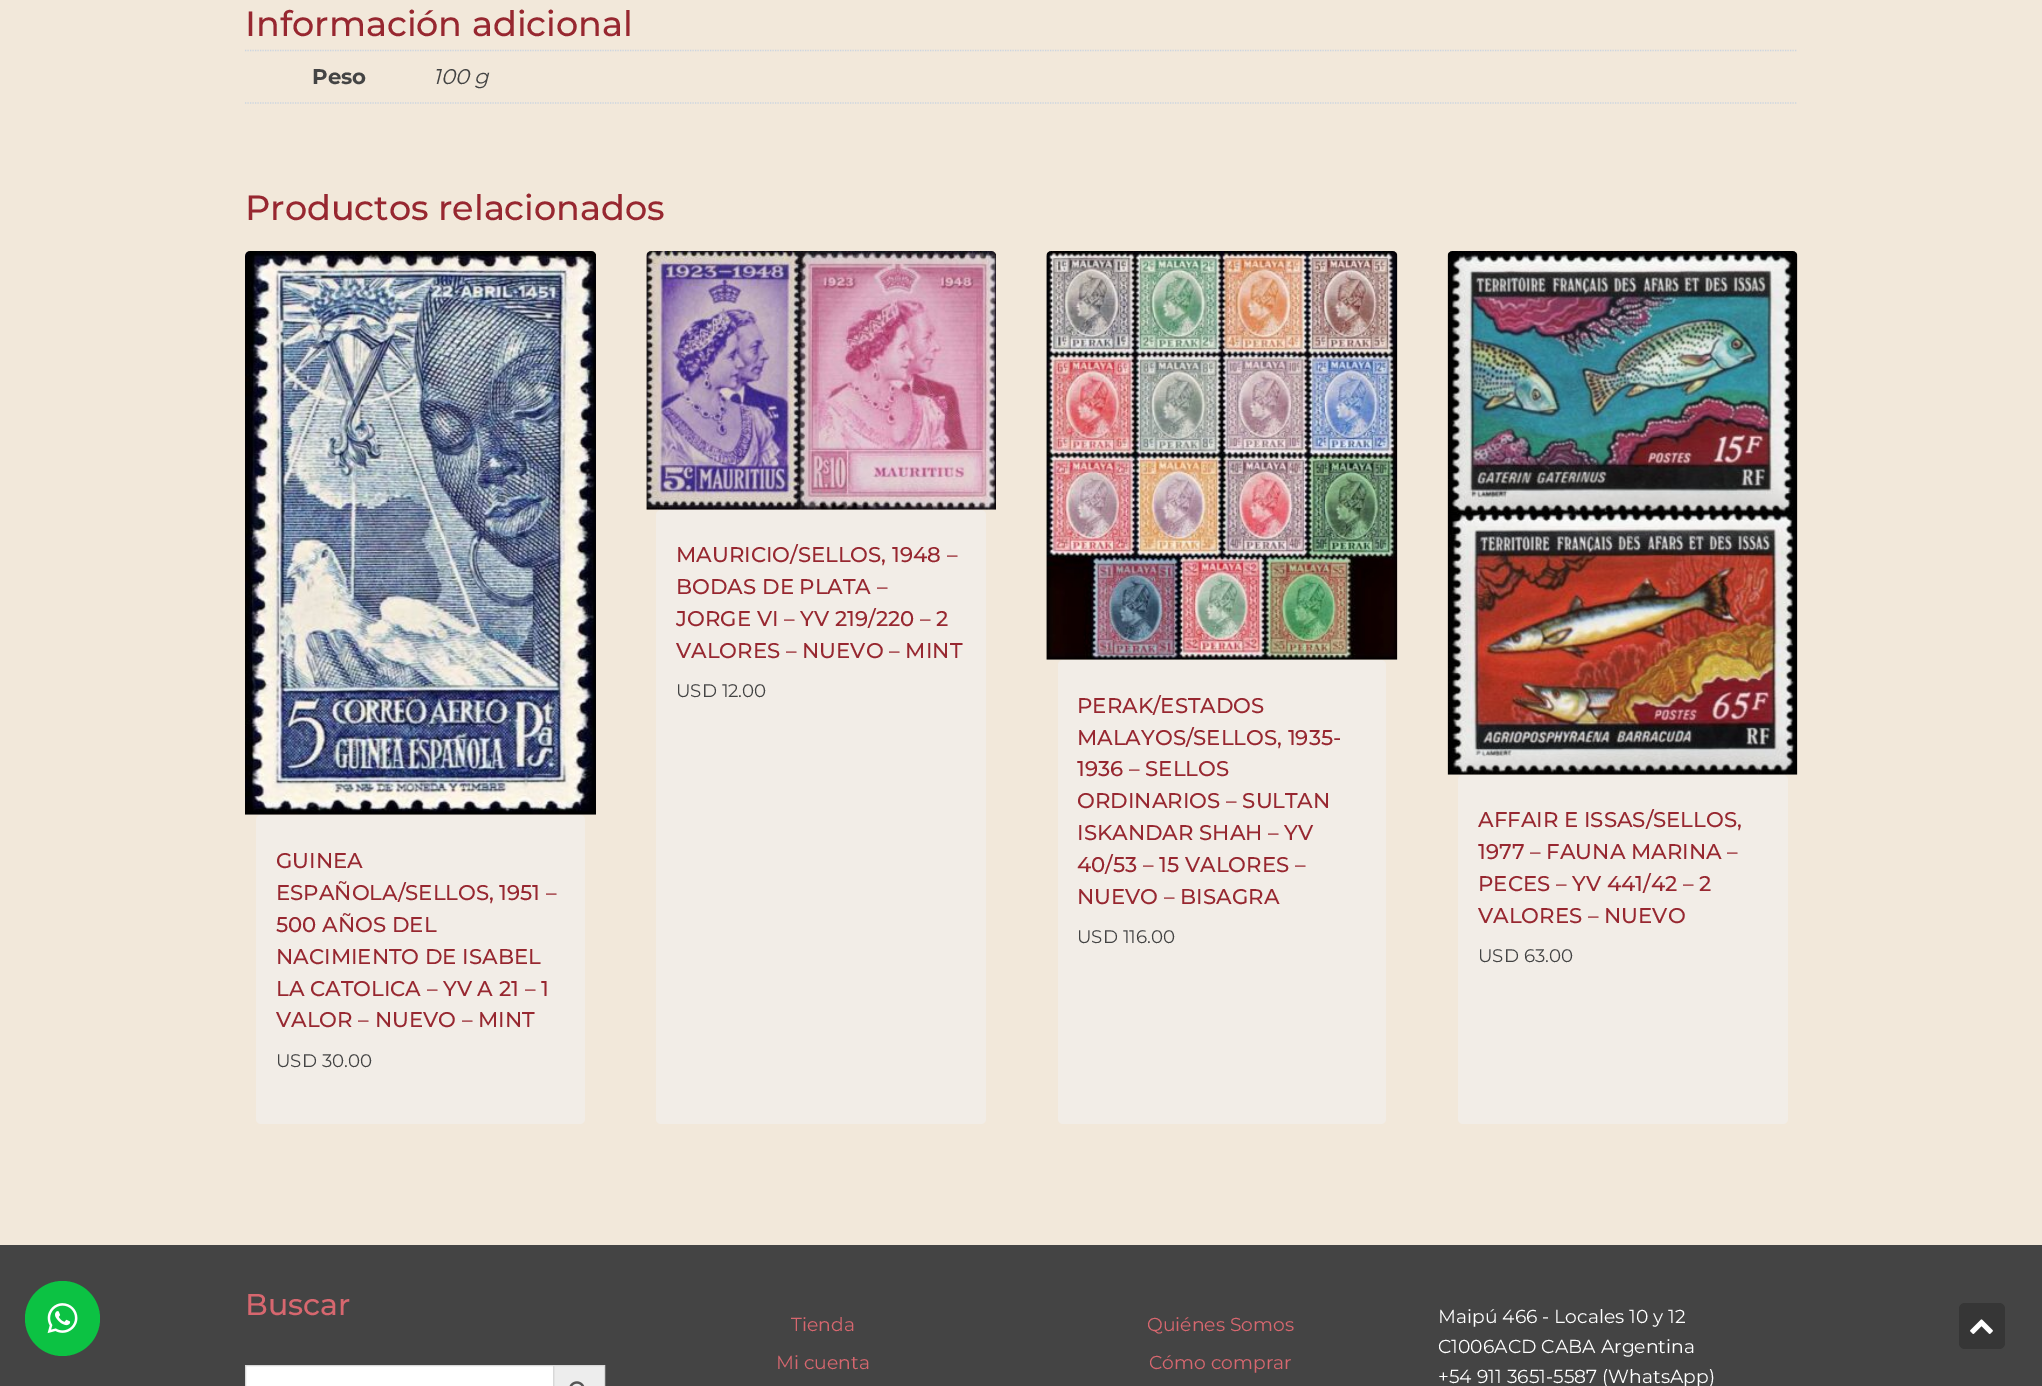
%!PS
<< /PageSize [2042 1386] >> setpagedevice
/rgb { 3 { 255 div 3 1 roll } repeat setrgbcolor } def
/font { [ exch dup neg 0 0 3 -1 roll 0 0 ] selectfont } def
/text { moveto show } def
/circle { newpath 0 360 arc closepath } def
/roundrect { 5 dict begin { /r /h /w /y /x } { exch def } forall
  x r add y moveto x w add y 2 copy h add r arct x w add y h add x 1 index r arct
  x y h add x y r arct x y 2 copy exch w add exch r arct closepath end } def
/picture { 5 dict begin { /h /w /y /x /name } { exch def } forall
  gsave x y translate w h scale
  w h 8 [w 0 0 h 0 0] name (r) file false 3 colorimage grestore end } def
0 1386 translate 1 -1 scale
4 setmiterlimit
242 232 218 rgb
0 0 2042 1386 rectfill
68 68 68 rgb
0 1245 2042 141 rectfill
12 194 67 rgb
62.5 1318.5 37.5 circle fill
(img_01.rgb) 47 1303 31 31 picture
203 213 224 rgb
1.2 setlinewidth
[1.25 1.25] 0 setdash
245 50.5 moveto 1552.5 0 rlineto stroke
245 103 moveto 187.5 0 rlineto stroke
432.5 103 moveto 1365 0 rlineto stroke
(img_02.rgb) 646 251 350 259 picture
242 237 231 rgb
656 510 330 614 5 roundrect fill
(img_03.rgb) 245 251 351 564 picture
256 815 329 309 5 roundrect fill
(img_04.rgb) 1046 251 352 409 picture
1058 660 328 464 5 roundrect fill
(img_05.rgb) 1447 251 351 524 picture
1458 775 330 349 5 roundrect fill
237 237 237 rgb
553.5 1365.5 moveto 51 0 rlineto 0 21 rlineto -51 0 rlineto closepath gsave fill grestore
216 216 216 rgb
1 setlinewidth
[] 0 setdash
stroke
255 255 255 rgb
245.5 1365.5 moveto 308 0 rlineto 0 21 rlineto -308 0 rlineto closepath gsave fill grestore
216 216 216 rgb
stroke
(img_06.rgb) 569 1381 16 5 picture
54 54 54 rgb
1959 1303 46 46 6 roundrect fill
(img_07.rgb) 1970 1319 23 15 picture
/Montserrat-Medium 35 font
151 39 48 rgb
(Información adicional) 245 36 text
/Montserrat-Bold 21.25 font
68 68 68 rgb
(Peso) 312 84 text
/Montserrat-Italic 21.25 font
(100 g) 433 84 text
/Montserrat-Medium 35 font
151 39 48 rgb
(Productos relacionados) 245 220 text
/Montserrat-Medium 21.25 font
(MAURICIO/SELLOS, 1948 –) 676 562 text
(BODAS DE PLATA –) 676 594 text
(JORGE VI – YV 219/220 – 2) 676 626 text
(VALORES – NUEVO – MINT) 676 658 text
/Montserrat-Regular 18.25 font
68 68 68 rgb
(USD 12.00) 676 697 text
/Montserrat-Medium 21.25 font
151 39 48 rgb
(GUINEA) 276 868 text
(ESPAÑOLA/SELLOS, 1951 –) 276 900 text
(500 AÑOS DEL) 276 932 text
(NACIMIENTO DE ISABEL) 276 964 text
(LA CATOLICA – YV A 21 – 1) 276 996 text
(VALOR – NUEVO – MINT) 276 1027 text
/Montserrat-Regular 18.25 font
68 68 68 rgb
(USD 30.00) 276 1067 text
/Montserrat-Medium 21.25 font
151 39 48 rgb
(PERAK/ESTADOS) 1077 713 text
(MALAYOS/SELLOS, 1935-) 1077 745 text
(1936 – SELLOS) 1077 776 text
(ORDINARIOS – SULTAN) 1077 808 text
(ISKANDAR SHAH – YV) 1077 840 text
(40/53 – 15 VALORES –) 1077 872 text
(NUEVO – BISAGRA) 1077 904 text
/Montserrat-Regular 18.25 font
68 68 68 rgb
(USD 116.00) 1077 943 text
/Montserrat-Medium 21.25 font
151 39 48 rgb
(AFFAIR E ISSAS/SELLOS,) 1478 827 text
(1977 – FAUNA MARINA –) 1478 859 text
(PECES – YV 441/42 – 2) 1478 891 text
(VALORES – NUEVO) 1478 923 text
/Montserrat-Regular 18.25 font
68 68 68 rgb
(USD 63.00) 1478 962 text
/Montserrat-Medium 30 font
215 103 111 rgb
(Buscar) 245 1315 text
/Montserrat-Regular 18.75 font
(Tienda) 791 1331 text
(Mi cuenta) 776 1369 text
(Quiénes Somos) 1147 1331 text
(Cómo comprar) 1149 1369 text
255 255 255 rgb
(Maipú 466 - Locales 10 y 12) 1438 1323 text
(C1006ACD CABA Argentina) 1438 1353 text
(+54 911 3651-5587 \(WhatsApp\)) 1438 1383 text
showpage
